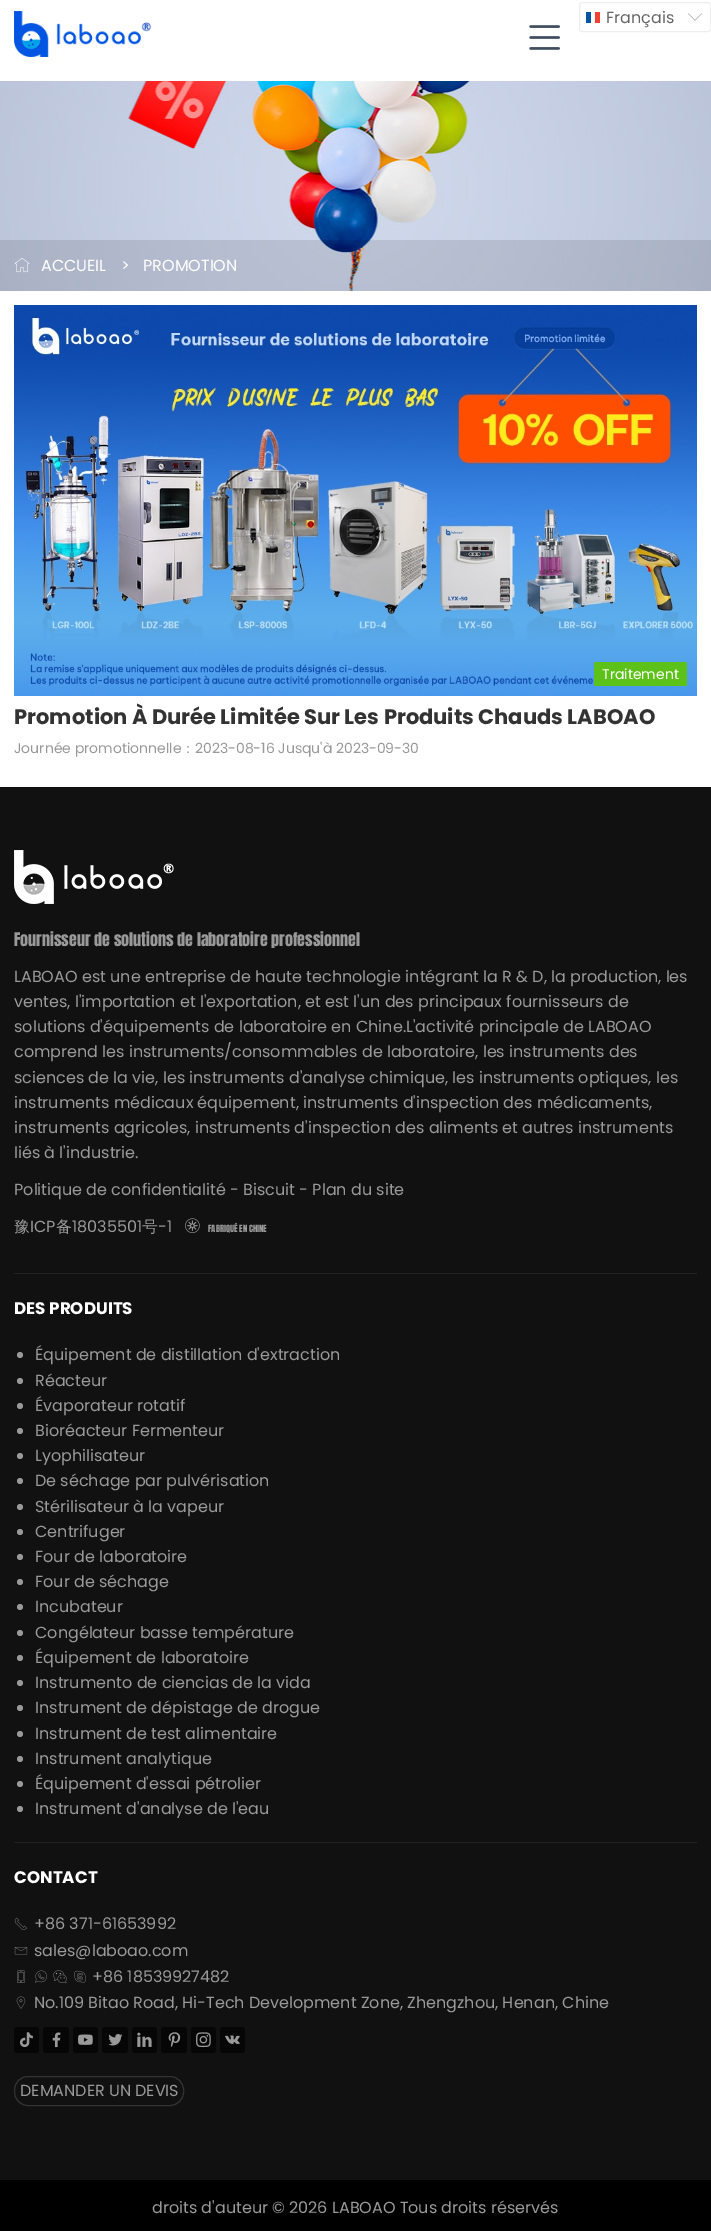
%!PS
<< /PageSize [711 2231] /PageUsesTransparency true >> setpagedevice
/rgb { 3 { 255 div 3 1 roll } repeat setrgbcolor } def
/font { [ exch dup neg 0 0 3 -1 roll 0 0 ] selectfont } def
/text { moveto show } def
/alpha { dup .setfillconstantalpha .setstrokeconstantalpha } def
/circle { newpath 0 360 arc closepath } def
/roundrect { 5 dict begin { /r /h /w /y /x } { exch def } forall
  x r add y moveto x w add y 2 copy h add r arct x w add y h add x 1 index r arct
  x y h add x y r arct x y 2 copy exch w add exch r arct closepath end } def
/picture { 5 dict begin { /h /w /y /x /name } { exch def } forall
  gsave x y translate w h scale
  w h 8 [w 0 0 h 0 0] name (r) file false 3 colorimage grestore end } def
0 .pushpdf14devicefilter
0 2231 translate 1 -1 scale
4 setmiterlimit
255 255 255 rgb
0 0 711 2231 rectfill
(img_01.rgb) 14 11 137 46 picture
238 238 238 rgb
579.5 2.5 131 29 2.5 roundrect stroke
(img_02.rgb) 586 12 14 11 picture
(img_03.rgb) 688 13 14 8 picture
(img_04.rgb) 529 25 31 25 picture
(img_05.rgb) 0 81 711 210 picture
0.1 alpha
0 0 0 rgb
0 240 711 51 rectfill
1 alpha
(img_06.rgb) 14 258 16 15 picture
(img_07.rgb) 14 305 683 391 picture
92 193 25 rgb
594 662 93 24 2 roundrect fill
17 17 17 rgb
0 787 711 1393 rectfill
34 34 34 rgb
14 1273 683 1 rectfill
(img_08.rgb) 14 850 160 54 picture
(img_09.rgb) 185 1218 15 15 picture
14 1842 683 1 rectfill
153 153 153 rgb
20 1355 3 circle fill
20 1381 3 circle fill
20 1406 3 circle fill
20 1431 3 circle fill
20 1456 3 circle fill
20 1481 3 circle fill
20 1507 3 circle fill
20 1532 3 circle fill
20 1557 3 circle fill
20 1582 3 circle fill
20 1607 3 circle fill
20 1633 3 circle fill
20 1658 3 circle fill
20 1683 3 circle fill
20 1708 3 circle fill
20 1734 3 circle fill
20 1759 3 circle fill
20 1784 3 circle fill
20 1809 3 circle fill
(img_10.rgb) 14 1917 13 13 picture
(img_11.rgb) 14 1947 14 8 picture
(img_12.rgb) 17 1970 8 13 picture
(img_13.rgb) 35 1970 12 13 picture
(img_14.rgb) 53 1970 14 14 picture
(img_15.rgb) 74 1970 12 13 picture
(img_16.rgb) 16 1996 10 13 picture
6 6 6 rgb
14 2027 25 26 3 roundrect fill
(img_17.rgb) 19 2032 14 16 picture
43 2027 26 26 3 roundrect fill
(img_18.rgb) 52 2032 9 16 picture
73 2027 25 26 3 roundrect fill
(img_19.rgb) 78 2034 15 11 picture
102 2027 26 26 3 roundrect fill
(img_20.rgb) 108 2034 15 12 picture
132 2027 25 26 3 roundrect fill
(img_21.rgb) 137 2032 15 15 picture
161 2027 26 26 3 roundrect fill
(img_22.rgb) 168 2032 13 16 picture
191 2027 25 26 3 roundrect fill
(img_23.rgb) 196 2032 15 16 picture
220 2027 25 26 3 roundrect fill
(img_24.rgb) 225 2035 15 9 picture
51 51 51 rgb
14.5 2076.5 169 29 13.5 roundrect stroke
0 0 0 rgb
0 2180 711 51 rectfill
/Poppins-Regular 16 font
102 102 102 rgb
(Français) 606 23 text
255 255 255 rgb
(ACCUEIL) 41 271 text
(>) 121 271 text
(PROMOTION) 143 271 text
/Poppins-Regular 14 font
(Traitement) 602 679 text
/Poppins-Bold 21 font
51 51 51 rgb
(Promotion À Durée Limitée Sur Les Produits Chauds LABOAO) 14 724 text
/Poppins-Regular 14 font
153 153 153 rgb
(Journée promotionnelle) 14 753 text
/WenQuanYiZenHei-Medium 14 font
(：) 181 753 text
/Poppins-Regular 14 font
(2023-08-16 Jusqu'à 2023-09-30) 195 753 text
/Anton-Regular 16 font
(Fournisseur de solutions de laboratoire professionnel) 14 946 text
/Poppins-Regular 16 font
(LABOAO est une entreprise de haute technologie intégrant la R & D, la production, les) 14 982 text
(ventes, l'importation et l'exportation, et est l'un des principaux fournisseurs de) 14 1007 text
(solutions d'équipements de laboratoire en Chine.L'activité principale de LABOAO) 14 1032 text
(comprend les instruments/consommables de laboratoire, les instruments des) 14 1057 text
(sciences de la vie, les instruments d'analyse chimique, les instruments optiques, les) 14 1083 text
(instruments médicaux équipement, instruments d'inspection des médicaments,) 14 1108 text
(instruments agricoles, instruments d'inspection des aliments et autres instruments) 14 1133 text
(liés à l'industrie.) 14 1158 text
(Politique de confidentialité - Biscuit - Plan du site) 14 1195 text
/WenQuanYiZenHei-Medium 16 font
(豫) 14 1232 text
/Poppins-Regular 16 font
(ICP) 30 1232 text
/WenQuanYiZenHei-Medium 16 font
(备) 56 1232 text
/Poppins-Regular 16 font
(18035501) 72 1232 text
/WenQuanYiZenHei-Medium 16 font
(号) 142 1232 text
/Poppins-Regular 16 font
(-1) 158 1232 text
/Anton-Regular 8.5 font
(FABRIQUÉ EN CHINE) 208 1232 text
/Poppins-Bold 16.75 font
255 255 255 rgb
(DES PRODUITS) 14 1314 text
/Poppins-Regular 16 font
153 153 153 rgb
(Équipement de distillation d'extraction) 35 1360 text
(Réacteur) 35 1386 text
(Évaporateur rotatif) 35 1411 text
(Bioréacteur Fermenteur) 35 1436 text
(Lyophilisateur) 35 1461 text
(De séchage par pulvérisation) 35 1486 text
(Stérilisateur à la vapeur) 35 1512 text
(Centrifuger) 35 1537 text
(Four de laboratoire) 35 1562 text
(Four de séchage) 35 1587 text
(Incubateur) 35 1612 text
(Congélateur basse température) 35 1638 text
(Équipement de laboratoire) 35 1663 text
(Instrumento de ciencias de la vida) 35 1688 text
(Instrument de dépistage de drogue) 35 1713 text
(Instrument de test alimentaire) 35 1739 text
(Instrument analytique) 35 1764 text
(Équipement d'essai pétrolier) 35 1789 text
(Instrument d'analyse de l'eau) 35 1814 text
/Poppins-Bold 16.75 font
255 255 255 rgb
(CONTACT) 14 1883 text
/Poppins-Regular 16 font
153 153 153 rgb
(+86 371-61653992) 34 1929 text
(sales@laboao.com) 34 1956 text
(+86 18539927482) 92 1982 text
(No.109 Bitao Road, Hi-Tech Development Zone, Zhengzhou, Henan, Chine) 34 2008 text
(DEMANDER UN DEVIS) 20 2096 text
(droits d'auteur © 2026 LABOAO Tous droits réservés) 152 2213 text
.poppdf14devicefilter showpage
